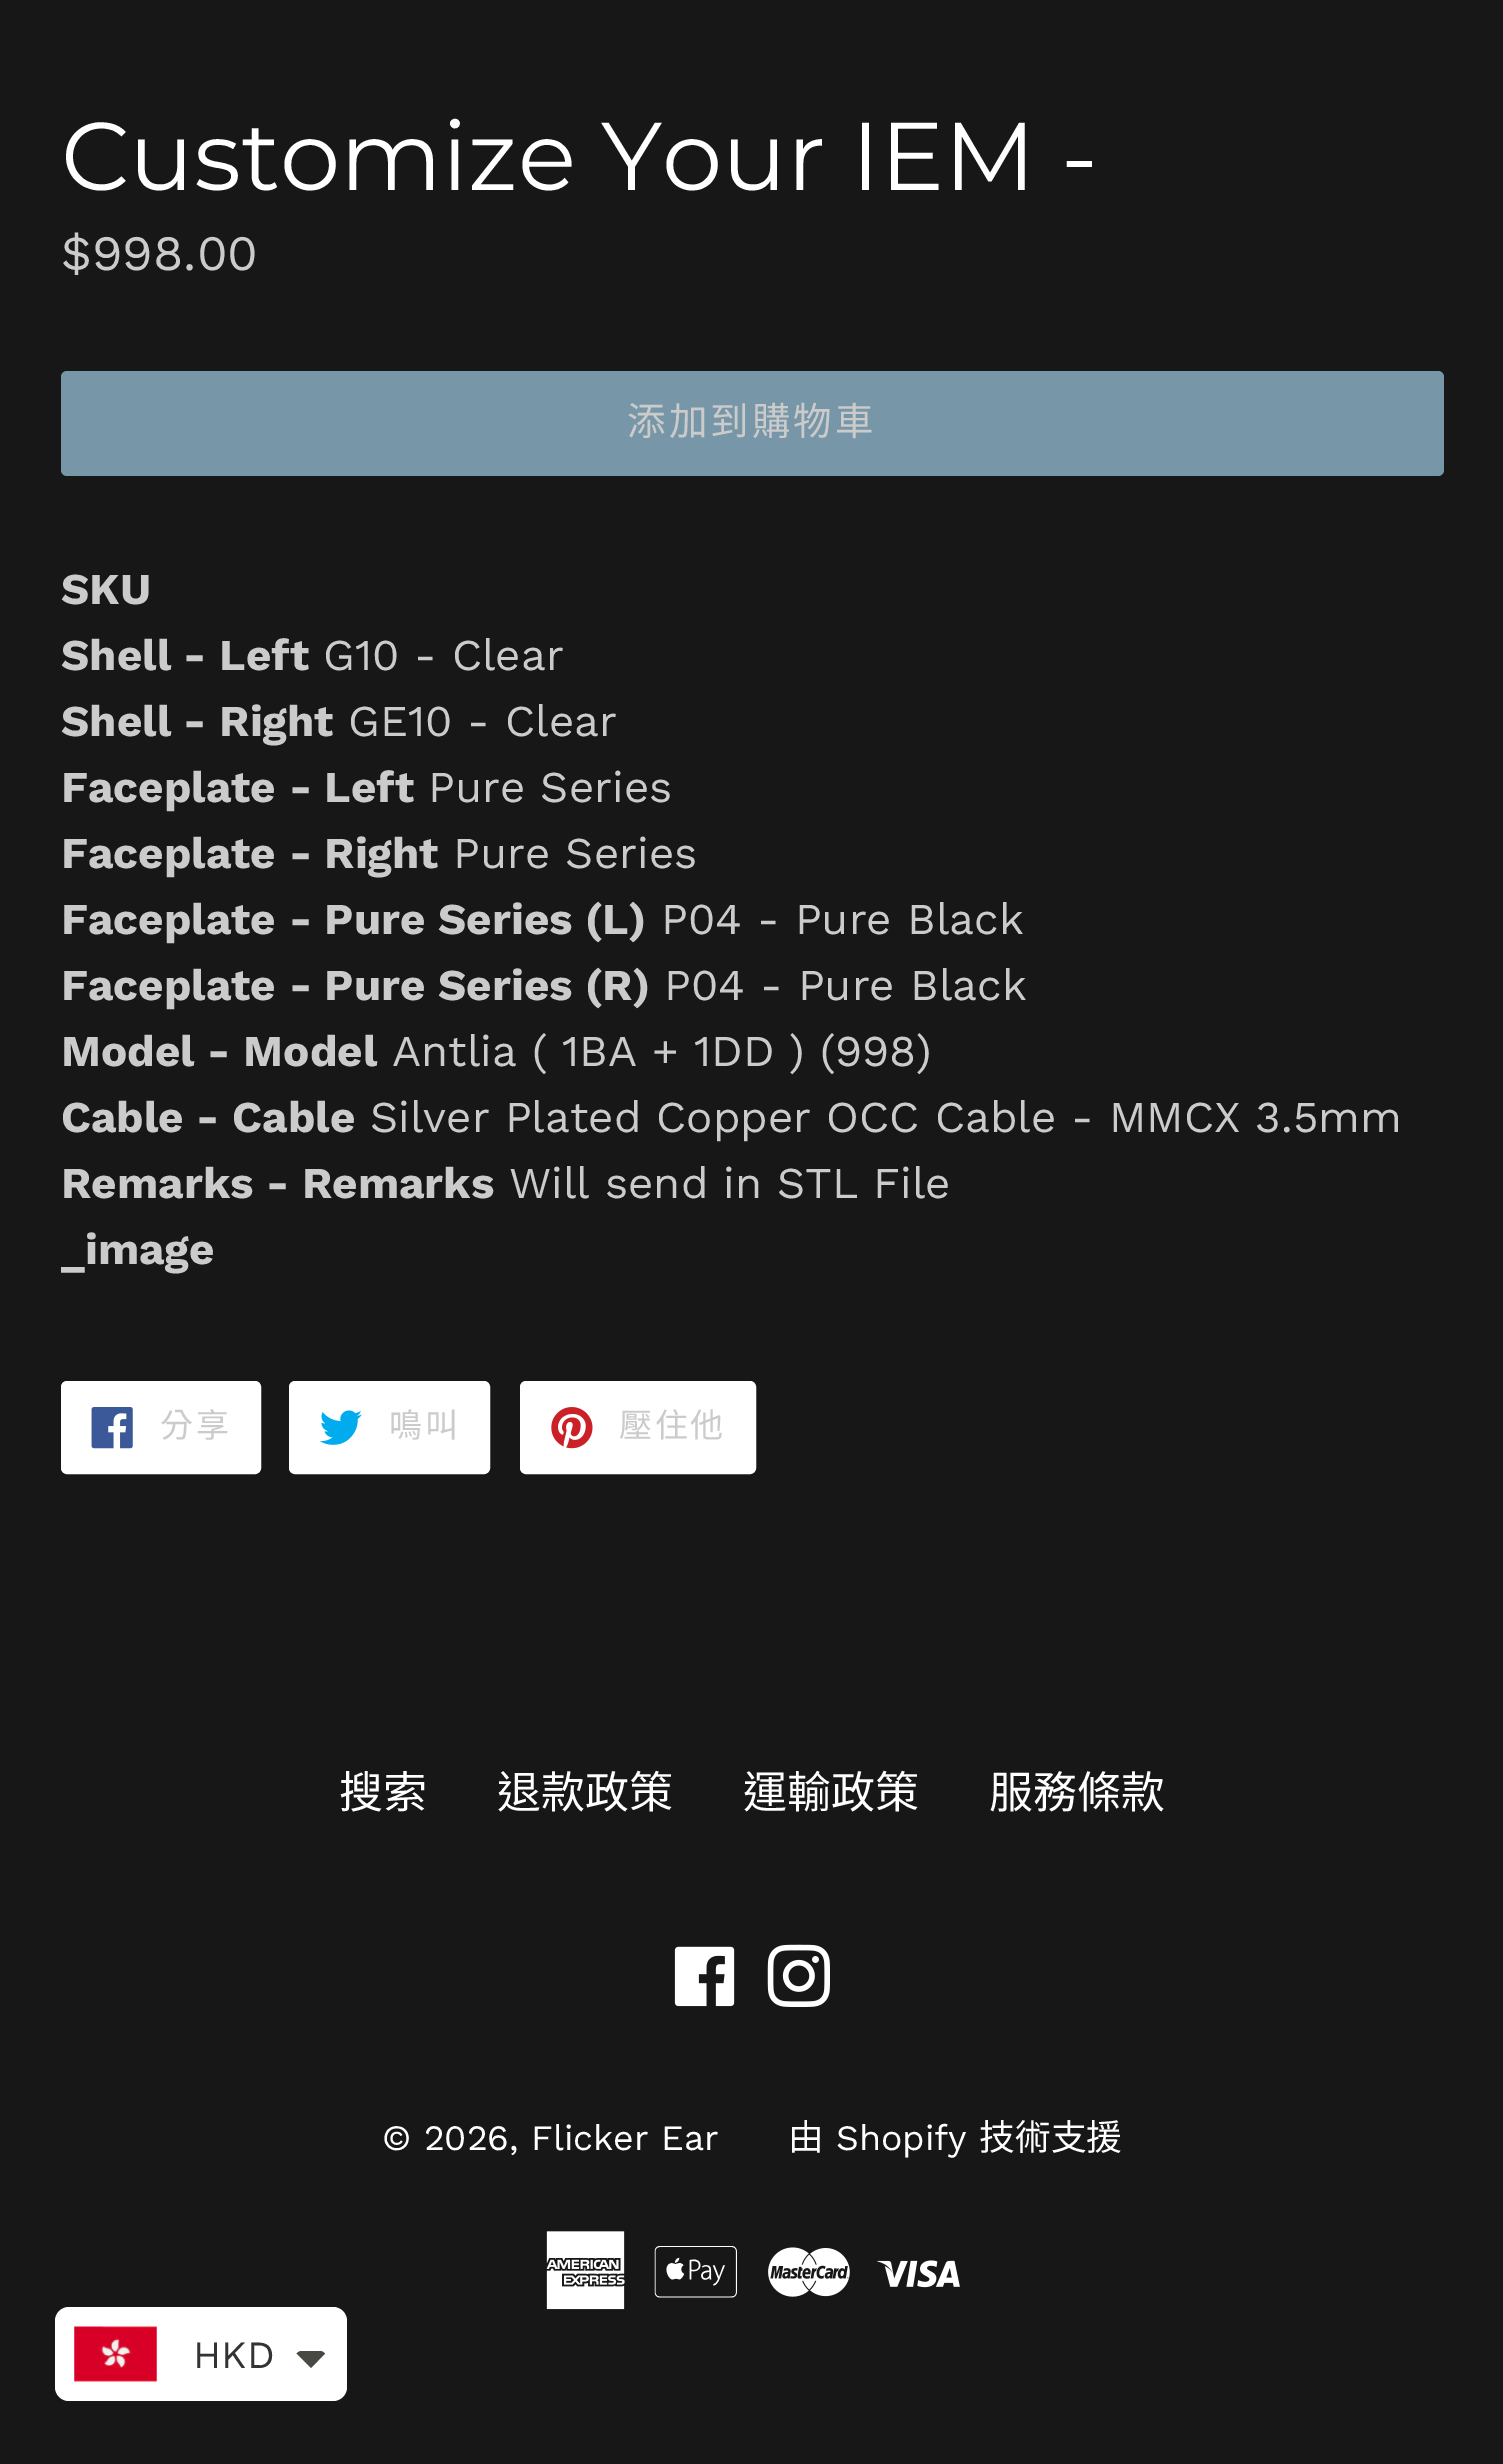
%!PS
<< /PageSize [1503 2464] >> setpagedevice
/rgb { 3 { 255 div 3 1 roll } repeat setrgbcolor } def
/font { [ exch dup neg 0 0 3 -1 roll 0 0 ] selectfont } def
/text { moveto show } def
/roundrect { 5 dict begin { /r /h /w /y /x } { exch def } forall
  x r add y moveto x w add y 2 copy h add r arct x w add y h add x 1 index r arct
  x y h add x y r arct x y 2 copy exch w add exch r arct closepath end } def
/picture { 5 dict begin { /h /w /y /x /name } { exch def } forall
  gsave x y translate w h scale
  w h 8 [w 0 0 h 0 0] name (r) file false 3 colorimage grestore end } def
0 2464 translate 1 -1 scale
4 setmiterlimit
23 23 23 rgb
0 0 1503 2464 rectfill
119 150 168 rgb
61 371 1383 105 6 roundrect fill
255 255 255 rgb
62.5 1382.5 197 90 4.5 roundrect gsave fill grestore
3 setlinewidth
stroke
(img_01.rgb) 91 1407 42 42 picture
290.5 1382.5 198 90 4.5 roundrect gsave fill grestore
stroke
(img_02.rgb) 320 1410 42 35 picture
521.5 1382.5 233 90 4.5 roundrect gsave fill grestore
stroke
(img_03.rgb) 551 1407 42 42 picture
(img_04.rgb) 674 1946 61 61 picture
(img_05.rgb) 767 1944 63 63 picture
(img_06.rgb) 546 2231 79 79 picture
(img_07.rgb) 654 2246 83 52 picture
(img_08.rgb) 768 2247 82 50 picture
(img_09.rgb) 877 2260 83 28 picture
55 2307 292 94 14 roundrect fill
(img_10.rgb) 74 2326 83 56 picture
71 73 66 rgb
296.5 2353.5 moveto 1 -1 2.5 -2 4 -2.5 rcurveto 20.5 0 rlineto 1.5 0.5 3 1.5 4 2.5 rcurveto -14 14.5 rlineto closepath fill
/Montserrat-Thin 96.25 font
255 255 255 rgb
(Customize Your IEM -) 61 190 text
/WorkSans-Regular 49.5 font
203 203 203 rgb
($998.00) 61 270 text
/NotoSansCJKTC-Regular 38.5 font
627 435 moveto 3 0 (添加到購物車) ashow
/WorkSans-Bold 44 font
(SKU) 61 604 text
(Shell - Left) 61 670 text
/WorkSans-Regular 44 font
(G10 - Clear) 323 670 text
/WorkSans-Bold 44 font
(Shell - Right) 61 736 text
/WorkSans-Regular 44 font
(GE10 - Clear) 348 736 text
/WorkSans-Bold 44 font
(Faceplate - Left) 61 802 text
/WorkSans-Regular 44 font
(Pure Series) 428 802 text
/WorkSans-Bold 44 font
(Faceplate - Right) 61 868 text
/WorkSans-Regular 44 font
(Pure Series) 453 868 text
/WorkSans-Bold 44 font
(Faceplate - Pure Series \(L\)) 61 934 text
/WorkSans-Regular 44 font
(P04 - Pure Black) 661 934 text
/WorkSans-Bold 44 font
(Faceplate - Pure Series \(R\)) 61 1000 text
/WorkSans-Regular 44 font
(P04 - Pure Black) 664 1000 text
/WorkSans-Bold 44 font
(Model - Model) 61 1066 text
/WorkSans-Regular 44 font
(Antlia \( 1BA + 1DD \) \(998\)) 392 1066 text
/WorkSans-Bold 44 font
(Cable - Cable) 61 1132 text
/WorkSans-Regular 44 font
(Silver Plated Copper OCC Cable - MMCX 3.5mm) 370 1132 text
/WorkSans-Bold 44 font
(Remarks - Remarks) 61 1198 text
/WorkSans-Regular 44 font
(Will send in STL File) 509 1198 text
/WorkSans-Bold 44 font
(_image) 61 1264 text
/NotoSansCJKTC-Regular 33 font
160 1437 moveto 2.5 0 (分享) ashow
389 1437 moveto 2.5 0 (鳴叫) ashow
619 1437 moveto 2.5 0 (壓住他) ashow
/NotoSansCJKTC-Regular 44 font
255 255 255 rgb
(搜索) 339 1808 text
(退款政策) 497 1808 text
(運輸政策) 743 1808 text
(服務條款) 989 1808 text
/WorkSans-Regular 35.75 font
(© 2026, Flicker Ear) 382 2150 text
/NotoSansCJKTC-Regular 35.75 font
(由) 788 2150 text
/WorkSans-Regular 35.75 font
(Shopify) 836 2150 text
/NotoSansCJKTC-Regular 35.75 font
(技術支援) 979 2150 text
/WorkSans-Regular 38.5 font
51 51 51 rgb
(HKD) 193 2368 text
showpage
